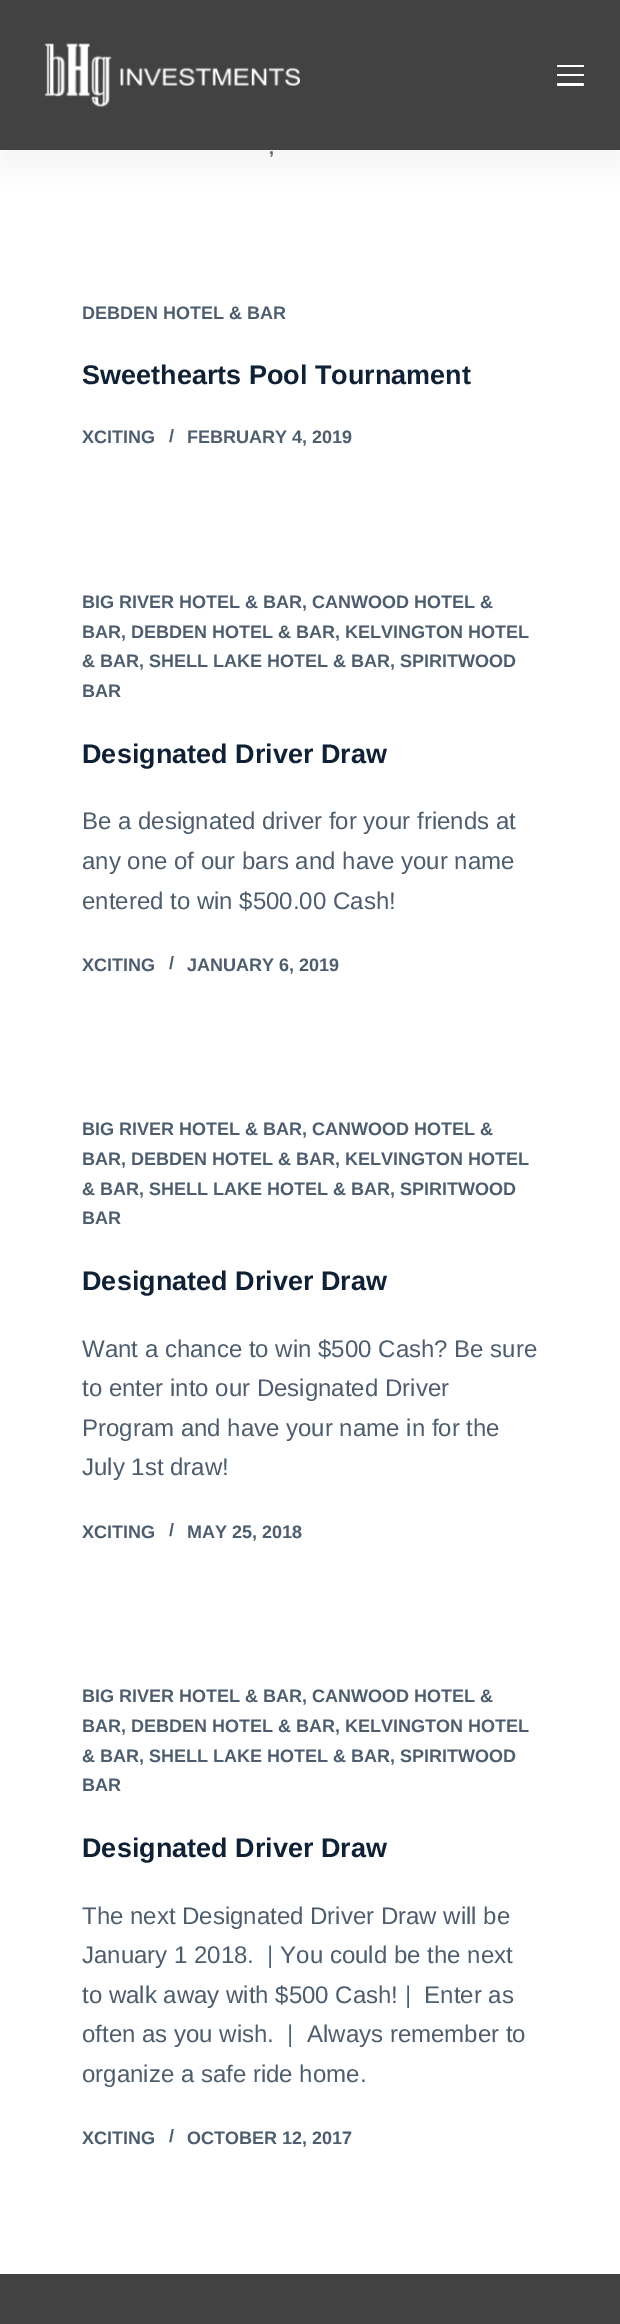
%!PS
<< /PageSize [620 2324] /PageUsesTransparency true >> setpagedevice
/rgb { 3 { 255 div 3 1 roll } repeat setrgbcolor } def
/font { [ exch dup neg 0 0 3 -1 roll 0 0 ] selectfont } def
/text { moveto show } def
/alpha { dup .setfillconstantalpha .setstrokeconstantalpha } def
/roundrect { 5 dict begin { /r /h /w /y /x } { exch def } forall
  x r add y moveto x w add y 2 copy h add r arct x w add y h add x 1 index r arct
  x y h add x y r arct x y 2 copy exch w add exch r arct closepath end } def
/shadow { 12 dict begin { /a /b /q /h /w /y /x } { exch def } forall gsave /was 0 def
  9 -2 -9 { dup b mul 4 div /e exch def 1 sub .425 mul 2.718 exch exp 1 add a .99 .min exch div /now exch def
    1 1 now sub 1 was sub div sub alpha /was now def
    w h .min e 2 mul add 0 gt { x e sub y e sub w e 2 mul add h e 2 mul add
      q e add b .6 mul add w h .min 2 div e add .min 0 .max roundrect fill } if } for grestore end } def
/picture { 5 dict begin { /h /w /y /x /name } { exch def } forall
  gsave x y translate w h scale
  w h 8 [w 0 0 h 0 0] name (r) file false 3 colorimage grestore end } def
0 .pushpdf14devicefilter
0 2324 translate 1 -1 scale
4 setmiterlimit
255 255 255 rgb
0 0 620 2324 rectfill
43 61 79 rgb
0 15 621 150 0 15 0.06 shadow
66 66 66 rgb
0 0 620 150 rectfill
(img_01.rgb) 44 43 256 64 picture
255 255 255 rgb
557 65 27 2 1 roundrect fill
557 74 27 2 1 roundrect fill
557 83 27 3 1.5 roundrect fill
66 66 66 rgb
0 2274 620 50 rectfill
/LiberationSans-Bold 18 font
77 93 109 rgb
(,) 269 154 text
(DEBDEN HOTEL & BAR) 82 319 text
/LiberationSans-Bold 27 font
16 33 54 rgb
(Sweethearts Pool Tournament) 82 384 text
/LiberationSans-Bold 18 font
77 93 109 rgb
(XCITING) 82 443 text
(/) 169 442 text
(FEBRUARY 4, 2019) 187 443 text
(BIG RIVER HOTEL & BAR, CANWOOD HOTEL &) 82 608 text
(BAR, DEBDEN HOTEL & BAR, KELVINGTON HOTEL) 82 638 text
(& BAR, SHELL LAKE HOTEL & BAR, SPIRITWOOD) 82 667 text
(BAR) 82 697 text
/LiberationSans-Bold 27 font
16 33 54 rgb
(Designated Driver Draw) 82 763 text
/LiberationSans-Regular 24 font
77 93 109 rgb
(Be a designated driver for your friends at) 82 829 text
(any one of our bars and have your name) 82 869 text
(entered to win $500.00 Cash!) 82 909 text
/LiberationSans-Bold 18 font
(XCITING) 82 971 text
(/) 169 969 text
(JANUARY 6, 2019) 187 971 text
(BIG RIVER HOTEL & BAR, CANWOOD HOTEL &) 82 1135 text
(BAR, DEBDEN HOTEL & BAR, KELVINGTON HOTEL) 82 1165 text
(& BAR, SHELL LAKE HOTEL & BAR, SPIRITWOOD) 82 1195 text
(BAR) 82 1224 text
/LiberationSans-Bold 27 font
16 33 54 rgb
(Designated Driver Draw) 82 1290 text
/LiberationSans-Regular 24 font
77 93 109 rgb
(Want a chance to win $500 Cash? Be sure) 82 1357 text
(to enter into our Designated Driver) 82 1396 text
(Program and have your name in for the) 82 1436 text
(July 1st draw!) 82 1475 text
/LiberationSans-Bold 18 font
(XCITING) 82 1538 text
(/) 169 1536 text
(MAY 25, 2018) 187 1538 text
(BIG RIVER HOTEL & BAR, CANWOOD HOTEL &) 82 1702 text
(BAR, DEBDEN HOTEL & BAR, KELVINGTON HOTEL) 82 1732 text
(& BAR, SHELL LAKE HOTEL & BAR, SPIRITWOOD) 82 1762 text
(BAR) 82 1791 text
/LiberationSans-Bold 27 font
16 33 54 rgb
(Designated Driver Draw) 82 1857 text
/LiberationSans-Regular 24 font
77 93 109 rgb
(The next Designated Driver Draw will be) 82 1924 text
(January 1 2018.  | You could be the next) 82 1963 text
(to walk away with $500 Cash! |  Enter as) 82 2003 text
(often as you wish.  |  Always remember to) 82 2042 text
(organize a safe ride home.) 82 2082 text
/LiberationSans-Bold 18 font
(XCITING) 82 2144 text
(/) 169 2142 text
(OCTOBER 12, 2017) 187 2144 text
.poppdf14devicefilter showpage
